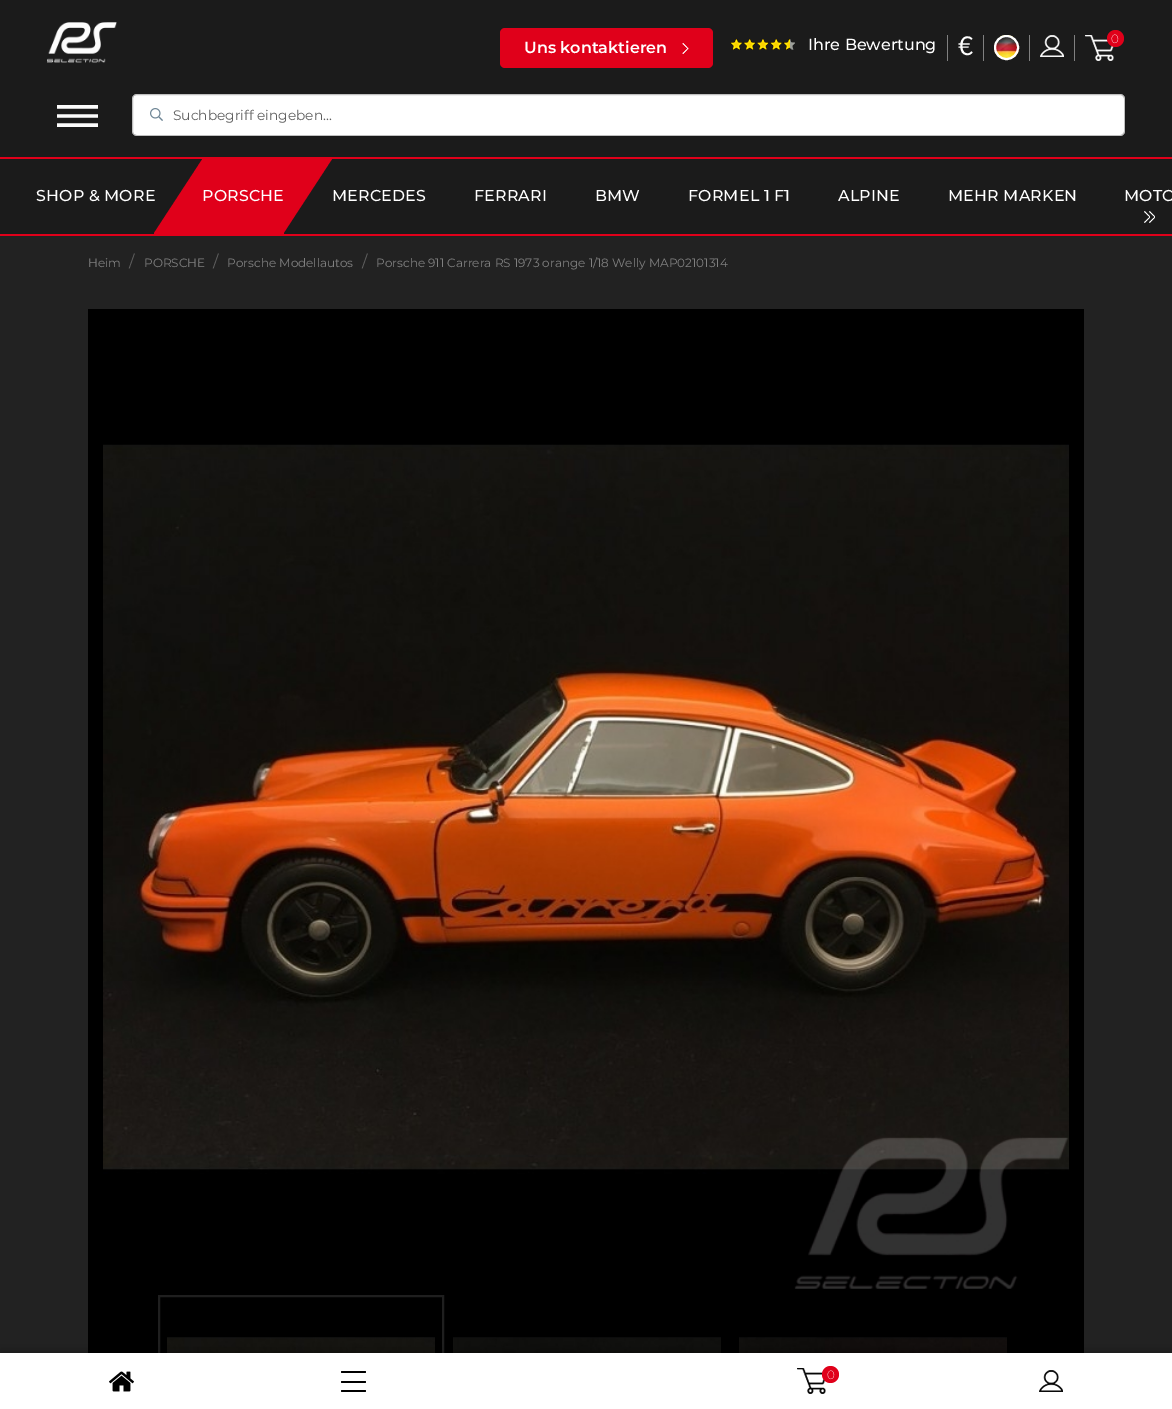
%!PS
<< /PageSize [1172 1409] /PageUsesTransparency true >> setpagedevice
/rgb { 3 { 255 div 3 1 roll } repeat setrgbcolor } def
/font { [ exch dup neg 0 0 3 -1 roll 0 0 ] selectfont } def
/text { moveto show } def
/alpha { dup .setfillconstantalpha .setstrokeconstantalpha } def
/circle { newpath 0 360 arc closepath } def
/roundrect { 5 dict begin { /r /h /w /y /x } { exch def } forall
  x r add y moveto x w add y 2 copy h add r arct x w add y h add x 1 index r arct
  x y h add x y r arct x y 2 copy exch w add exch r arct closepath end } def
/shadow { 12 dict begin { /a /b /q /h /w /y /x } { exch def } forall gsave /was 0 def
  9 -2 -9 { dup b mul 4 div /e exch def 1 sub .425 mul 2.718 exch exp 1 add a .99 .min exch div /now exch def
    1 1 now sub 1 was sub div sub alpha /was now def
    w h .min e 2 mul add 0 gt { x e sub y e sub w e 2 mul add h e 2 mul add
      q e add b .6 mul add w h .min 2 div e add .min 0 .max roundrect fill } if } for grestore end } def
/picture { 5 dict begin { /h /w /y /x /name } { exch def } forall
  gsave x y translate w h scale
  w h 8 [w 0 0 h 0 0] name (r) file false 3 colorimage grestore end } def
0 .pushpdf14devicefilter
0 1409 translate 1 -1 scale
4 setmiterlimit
34 34 34 rgb
0 0 1172 1409 rectfill
27 27 27 rgb
0 0 1172 157 rectfill
(img_01.rgb) 47 22 70 41 picture
224 0 26 rgb
500 28 213 40 5 roundrect fill
(img_02.rgb) 682 43 7 11 picture
128 128 128 rgb
947 35 1 26 rectfill
(img_03.rgb) 730 39 65 11 picture
983 35 1 26 rectfill
1029 35 1 26 rectfill
(img_04.rgb) 994 35 25 25 picture
255 255 255 rgb
2 setlinewidth
1006.5 47.5 11.5 circle stroke
128 128 128 rgb
1074 35 1 26 rectfill
(img_05.rgb) 1040 35 24 22 picture
(img_06.rgb) 1085 35 29 26 picture
224 0 26 rgb
1115.5 38.5 8.5 circle fill
(img_07.rgb) 57 105 41 22 picture
255 255 255 rgb
132 94 993 42 5 roundrect fill
0.25 alpha
0 0 0 rgb
1 setlinewidth
132.5 94.5 992 41 4.5 roundrect stroke
1 alpha
255 255 255 rgb
134 96 1 38 rectfill
(img_08.rgb) 150 108 13 13 picture
27 27 27 rgb
0 159 1172 75 rectfill
224 0 26 rgb
0 157 1172 2 rectfill
0 234 1172 2 rectfill
154 159 130 75 rectfill
27 27 27 rgb
153 159 moveto 0 75 rlineto 49 -75 rlineto closepath fill
224 0 26 rgb
283 159 moveto 0 75 rlineto 49 -75 rlineto closepath fill
(img_09.rgb) 1144 211 11 12 picture
0 0 0 rgb
88 309 996 1044 rectfill
(img_10.rgb) 103 444 966 845 picture
31 31 31 rgb
2 setlinewidth
159 1296 284 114 rectstroke
(img_11.rgb) 167 1337 268 16 picture
(img_12.rgb) 453 1337 268 16 picture
(img_13.rgb) 739 1337 268 16 picture
0 0 0 rgb
0 1353 1172 56 0 7.5 0.3 shadow
255 255 255 rgb
0 1353 1172 56 rectfill
(img_14.rgb) 109 1371 25 21 picture
0 0 0 rgb
341 1371 25 2 1 roundrect fill
341 1381 25 2 1 roundrect fill
341 1390 25 2 1 roundrect fill
(img_15.rgb) 797 1368 29 26 picture
224 0 26 rgb
830.5 1374.5 8.5 circle fill
(img_16.rgb) 1039 1370 24 22 picture
/Montserrat-SemiBold 16 font
255 255 255 rgb
(Uns kontaktieren) 524 53 text
/Montserrat-Medium 16 font
(Ihre Bewertung) 808 50 text
/Lato-Regular 26 font
(€) 958 55 text
/Montserrat-ExtraLight 12 font
(0) 1111 43 text
/Montserrat-Regular 13.75 font
95 95 95 rgb
(Suchbegriff eingeben...) 173 120 text
/Montserrat-Medium 15.75 font
255 255 255 rgb
36 201 moveto 0.25 0 (SHOP & MORE) ashow
202 201 moveto 0.25 0 (PORSCHE) ashow
332 201 moveto 0.25 0 (MERCEDES) ashow
474 201 moveto 0.25 0 (FERRARI) ashow
595 201 moveto 0.25 0 (BMW) ashow
688 201 moveto 0.25 0 (FORMEL 1 F1) ashow
838 201 moveto 0.25 0 (ALPINE) ashow
948 201 moveto 0.25 0 (MEHR MARKEN) ashow
1124 201 moveto 0.25 0 (MOTO) ashow
/Montserrat-Regular 12 font
128 128 128 rgb
(Heim) 88 267 text
/Montserrat-Regular 16 font
95 95 95 rgb
(/) 129 267 text
/Montserrat-Regular 12 font
128 128 128 rgb
(PORSCHE) 144 267 text
/Montserrat-Regular 16 font
95 95 95 rgb
(/) 213 267 text
/Montserrat-Regular 12 font
128 128 128 rgb
(Porsche Modellautos) 227 267 text
/Montserrat-Regular 16 font
95 95 95 rgb
(/) 362 267 text
/Montserrat-Regular 12 font
128 128 128 rgb
(Porsche 911 Carrera RS 1973 orange 1/18 Welly MAP02101314) 376 267 text
/Montserrat-ExtraLight 12 font
255 255 255 rgb
(0) 827 1379 text
.poppdf14devicefilter showpage
